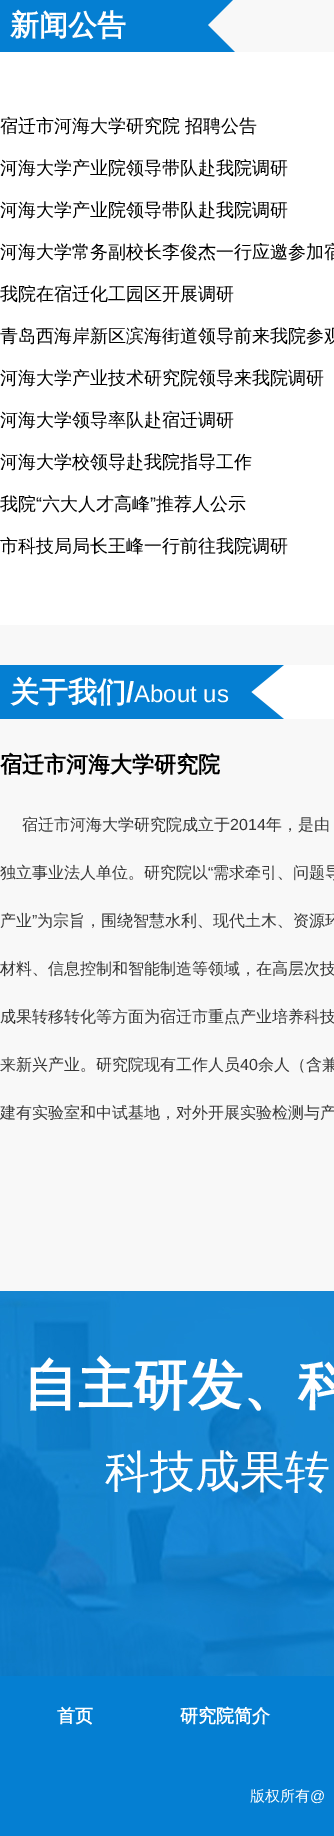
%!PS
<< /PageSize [334 1836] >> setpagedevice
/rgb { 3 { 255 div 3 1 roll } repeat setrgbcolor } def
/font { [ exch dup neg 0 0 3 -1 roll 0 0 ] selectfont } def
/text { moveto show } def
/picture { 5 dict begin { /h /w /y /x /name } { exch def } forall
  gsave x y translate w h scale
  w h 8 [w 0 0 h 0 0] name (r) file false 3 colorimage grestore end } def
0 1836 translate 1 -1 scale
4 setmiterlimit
255 255 255 rgb
0 0 334 1836 rectfill
248 248 248 rgb
208 0 126 52 rectfill
(img_01.rgb) 0 0 235 52 picture
0 625 334 666 rectfill
255 255 255 rgb
251 665 83 54 rectfill
(img_02.rgb) 0 665 284 54 picture
(img_03.rgb) 0 1291 334 385 picture
5 127 210 rgb
0 1676 334 160 rectfill
/WenQuanYiZenHei-Bold 29 font
255 255 255 rgb
(新闻公告) 10 35 text
/WenQuanYiZenHei-Medium 18 font
0 0 0 rgb
(宿迁市河海大学研究院 招聘公告) 0 132 text
(河海大学产业院领导带队赴我院调研) 0 174 text
(河海大学产业院领导带队赴我院调研) 0 216 text
(河海大学常务副校长李俊杰一行应邀参加宿) 0 258 text
(我院在宿迁化工园区开展调研) 0 300 text
(青岛西海岸新区滨海街道领导前来我院参观) 0 342 text
(河海大学产业技术研究院领导来我院调研) 0 384 text
(河海大学领导率队赴宿迁调研) 0 426 text
(河海大学校领导赴我院指导工作) 0 468 text
(我院) 0 510 text
/LiberationSans-Regular 18 font
(“) 36 510 text
/WenQuanYiZenHei-Medium 18 font
(六大人才高峰) 42 510 text
/LiberationSans-Regular 18 font
(”) 150 510 text
/WenQuanYiZenHei-Medium 18 font
(推荐人公示) 156 510 text
(市科技局局长王峰一行前往我院调研) 0 552 text
/WenQuanYiZenHei-Bold 29 font
255 255 255 rgb
(关于我们) 10 702 text
/LiberationSans-Bold 29 font
(/) 126 702 text
/LiberationSans-Regular 24 font
(About us) 134 702 text
/WenQuanYiZenHei-Bold 22 font
0 0 0 rgb
(宿迁市河海大学研究院) 0 772 text
/WenQuanYiZenHei-Medium 16 font
55 55 55 rgb
(宿迁市河海大学研究院成立于) 22 830 text
/LiberationSans-Regular 16 font
(2014) 230 830 text
/WenQuanYiZenHei-Medium 16 font
(年，是由) 266 830 text
(独立事业法人单位。研究院以) 0 878 text
/LiberationSans-Regular 16 font
(“) 208 878 text
/WenQuanYiZenHei-Medium 16 font
(需求牵引、问题导) 213 878 text
(产业) 0 926 text
/LiberationSans-Regular 16 font
(”) 32 926 text
/WenQuanYiZenHei-Medium 16 font
(为宗旨，围绕智慧水利、现代土木、资源环) 37 926 text
(材料、信息控制和智能制造等领域，在高层次技) 0 974 text
(成果转移转化等方面为宿迁市重点产业培养科技) 0 1022 text
(来新兴产业。研究院现有工作人员) 0 1070 text
/LiberationSans-Regular 16 font
(40) 240 1070 text
/WenQuanYiZenHei-Medium 16 font
(余人（含兼) 258 1070 text
(建有实验室和中试基地，对外开展实验检测与产) 0 1118 text
/WenQuanYiZenHei-Bold 55 font
255 255 255 rgb
(自主研发、科) 23 1404 text
/WenQuanYiZenHei-Medium 45 font
(科技成果转) 105 1487 text
/WenQuanYiZenHei-Bold 18 font
(首页) 57 1722 text
(研究院简介) 180 1722 text
/WenQuanYiZenHei-Medium 15 font
(版权所有) 250 1801 text
/LiberationSans-Regular 15 font
(@) 310 1801 text
showpage
